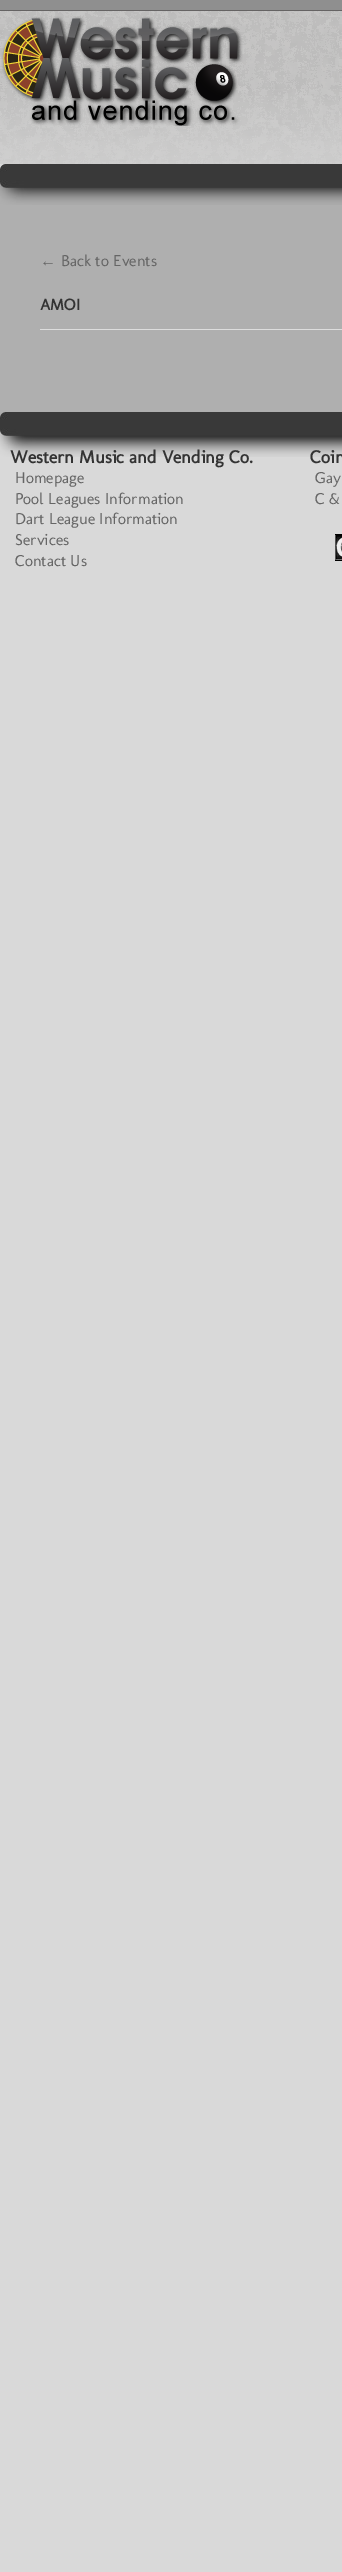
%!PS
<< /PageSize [342 2572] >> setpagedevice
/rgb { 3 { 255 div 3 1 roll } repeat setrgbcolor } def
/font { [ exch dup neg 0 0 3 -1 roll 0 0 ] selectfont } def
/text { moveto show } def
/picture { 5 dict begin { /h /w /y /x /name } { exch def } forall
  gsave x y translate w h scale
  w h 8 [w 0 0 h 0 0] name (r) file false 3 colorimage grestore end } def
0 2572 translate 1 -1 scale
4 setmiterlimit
217 217 217 rgb
0 0 342 2572 rectfill
(img_01.rgb) 0 0 342 164 picture
(img_02.rgb) 1 16 242 110 picture
175 175 175 rgb
0 205 342 207 rectfill
(img_03.rgb) 0 164 342 41 picture
221 221 221 rgb
40 329 302 1 rectfill
(img_04.rgb) 0 412 342 45 picture
(img_05.rgb) 335 534 7 27 picture
/LiberationSans-Regular 16 font
102 102 102 rgb
(←) 40 266 text
/Molengo-Regular 16 font
(Back to Events) 61 266 text
/Molengo-Bold 16 font
51 51 51 rgb
(AMOI) 40 310 text
/Molengo-Bold 18 font
(Western Music and Vending Co.) 10 463 text
/Molengo-Regular 16 font
102 102 102 rgb
(Homepage) 15 483 text
(Pool Leagues Information) 15 504 text
(Dart League Information) 15 524 text
(Services) 15 545 text
(Contact Us) 15 566 text
/Molengo-Bold 18 font
51 51 51 rgb
(Coin) 310 463 text
/Molengo-Regular 16 font
102 102 102 rgb
(Gay) 315 483 text
(C &) 315 504 text
showpage
